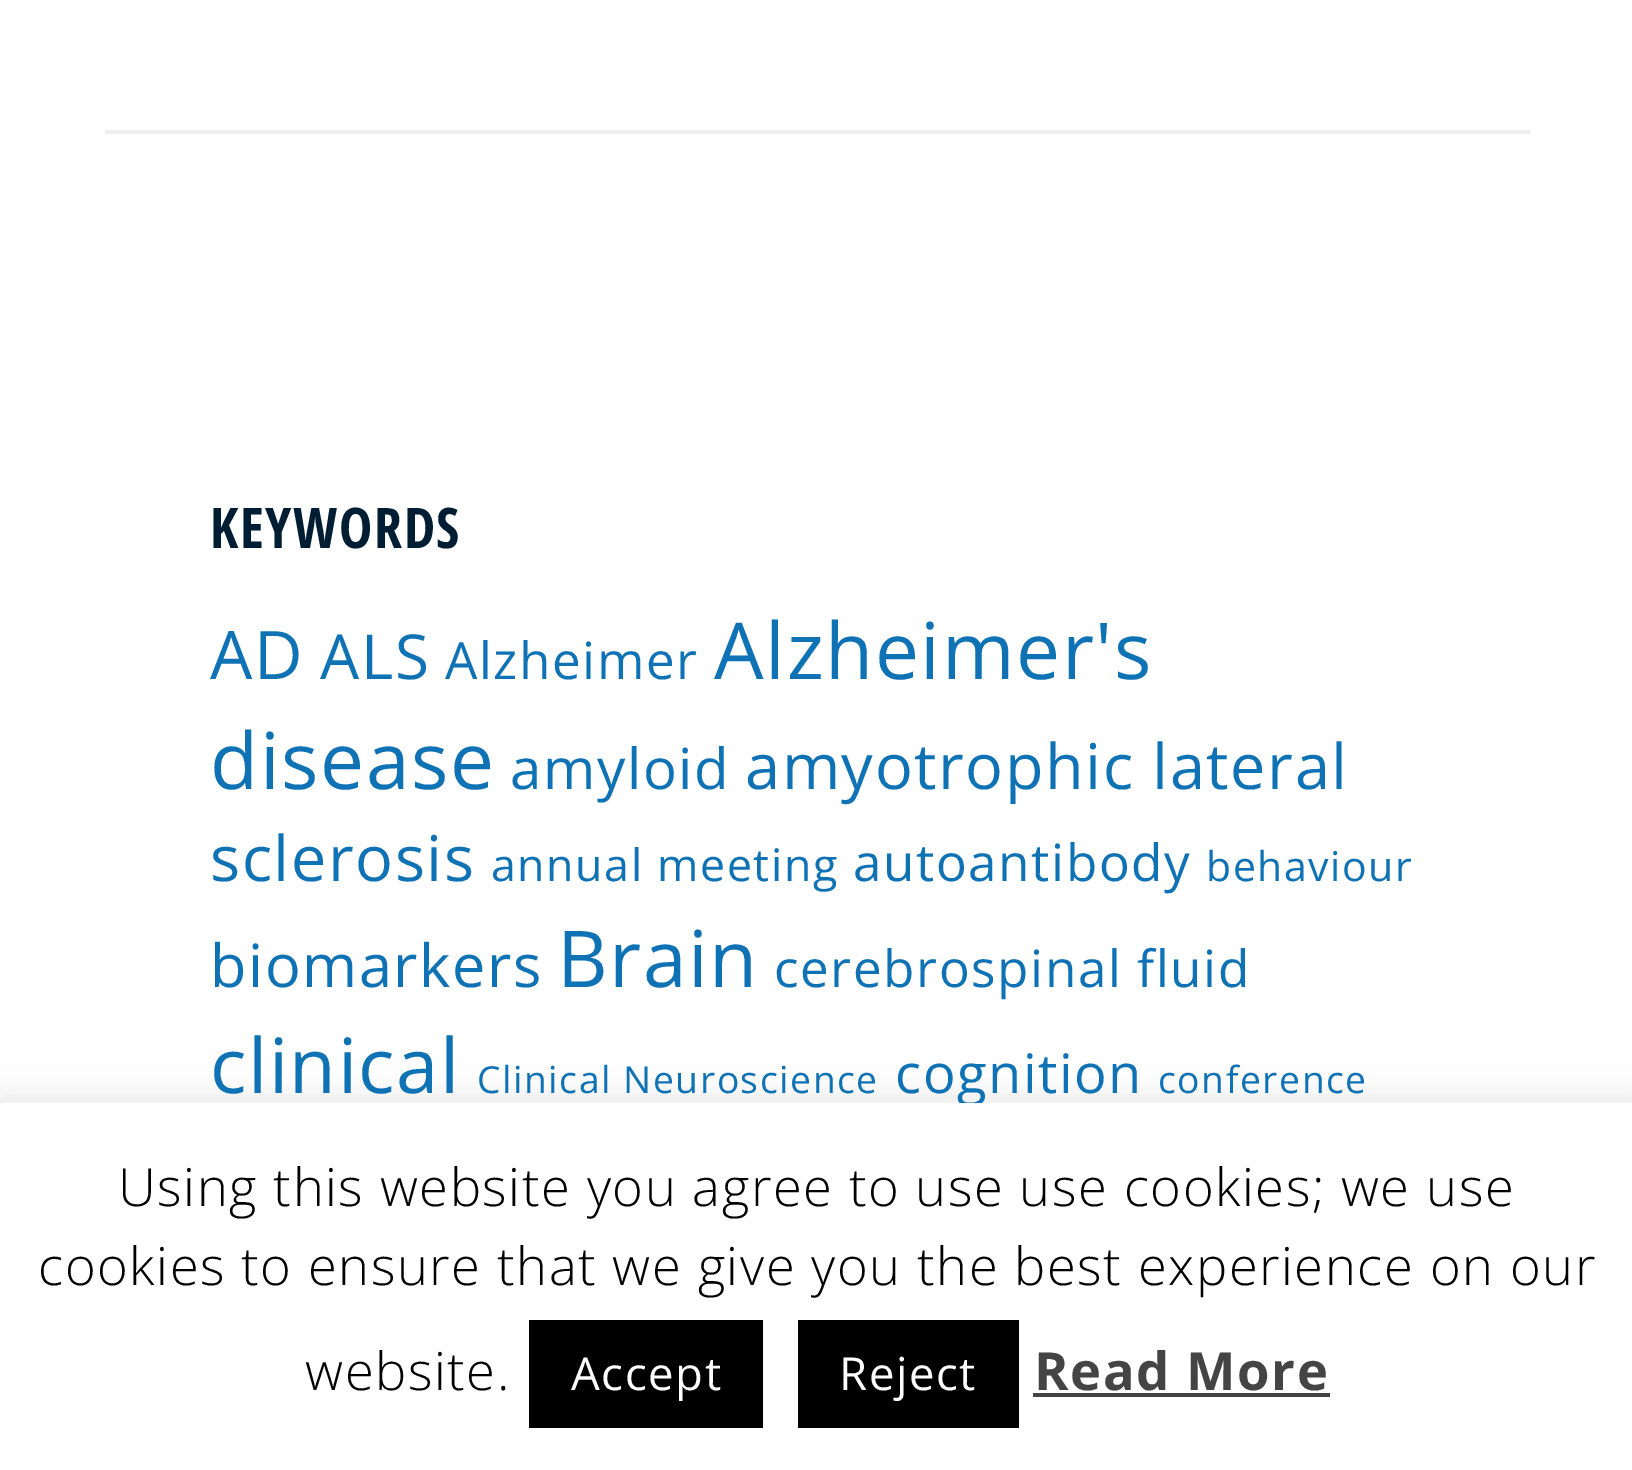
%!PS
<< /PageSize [1632 1470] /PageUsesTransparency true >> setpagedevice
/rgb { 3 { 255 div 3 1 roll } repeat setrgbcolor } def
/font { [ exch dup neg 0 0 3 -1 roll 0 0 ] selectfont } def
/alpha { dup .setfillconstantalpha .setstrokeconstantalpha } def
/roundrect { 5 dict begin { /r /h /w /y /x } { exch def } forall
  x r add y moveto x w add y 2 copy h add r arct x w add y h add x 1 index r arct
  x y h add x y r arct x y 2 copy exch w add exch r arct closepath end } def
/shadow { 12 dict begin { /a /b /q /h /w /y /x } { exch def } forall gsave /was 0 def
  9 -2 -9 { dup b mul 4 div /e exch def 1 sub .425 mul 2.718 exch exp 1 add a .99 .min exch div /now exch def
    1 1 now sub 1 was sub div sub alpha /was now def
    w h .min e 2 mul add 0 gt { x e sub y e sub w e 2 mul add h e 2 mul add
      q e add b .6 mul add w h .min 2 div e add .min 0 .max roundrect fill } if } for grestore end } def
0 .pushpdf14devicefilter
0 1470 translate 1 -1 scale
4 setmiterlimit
255 255 255 rgb
0 0 1632 1470 rectfill
238 238 238 rgb
105 130 1425 4 rectfill
172 171 171 rgb
0 1099 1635 368 0 17.5 0.3 shadow
/OpenSansCondensed-Bold 56 font
0 30 51 rgb
210 548 moveto 1.57 0 (KEYWORDS) ashow
/OpenSans-Regular 67 font
14 114 181 rgb
210 679 moveto 1.57 0 (AD) ashow
/OpenSans-Regular 62 font
320 679 moveto 1.57 0 (ALS) ashow
/OpenSans-Regular 51.25 font
445 679 moveto 1.57 0 (Alzheimer) ashow
/OpenSans-Regular 78.5 font
714 679 moveto 1.57 0 (Alzheimer's) ashow
210 789 moveto 1.57 0 (disease) ashow
/OpenSans-Regular 56.5 font
510 789 moveto 1.57 0 (amyloid) ashow
/OpenSans-Regular 63 font
745 789 moveto 1.57 0 (amyotrophic lateral) ashow
210 881 moveto 1.57 0 (sclerosis) ashow
/OpenSans-Regular 44.75 font
491 881 moveto 1.57 0 (annual meeting) ashow
/OpenSans-Regular 51.25 font
853 881 moveto 1.57 0 (autoantibody) ashow
/OpenSans-Regular 41 font
1206 881 moveto 1.57 0 (behaviour) ashow
/OpenSans-Regular 59.5 font
210 987 moveto 1.57 0 (biomarkers) ashow
/OpenSans-Regular 78.5 font
557 987 moveto 1.57 0 (Brain) ashow
/OpenSans-Regular 51.25 font
774 987 moveto 1.57 0 (cerebrospinal fluid) ashow
/OpenSans-Regular 76 font
210 1093 moveto 1.57 0 (clinical) ashow
/OpenSans-Regular 37.25 font
477 1093 moveto 1.57 0 (Clinical Neuroscience) ashow
/OpenSans-Regular 54.25 font
895 1093 moveto 1.57 0 (cognition) ashow
/OpenSans-Regular 37.25 font
1158 1093 moveto 1.57 0 (conference) ashow
255 255 255 rgb
0 1103 1632 367 rectfill
/OpenSans-Light 52.5 font
0 0 0 rgb
118 1206 moveto 1.57 0 (Using this website you agree to use use cookies; we use) ashow
38 1285 moveto 1.57 0 (cookies to ensure that we give you the best experience on our) ashow
305 1390 moveto 1.57 0 (website.) ashow
529 1320 234 108 rectfill
/OpenSans-Regular 45.5 font
255 255 255 rgb
571 1390 moveto 1.57 0 (Accept) ashow
0 0 0 rgb
798 1320 221 108 rectfill
255 255 255 rgb
839 1390 moveto 1.57 0 (Reject) ashow
/OpenSans-Bold 52.5 font
68 68 68 rgb
1034 1390 moveto 1.57 0 (Read More) ashow
1033 1393 297 4 rectfill
.poppdf14devicefilter showpage
